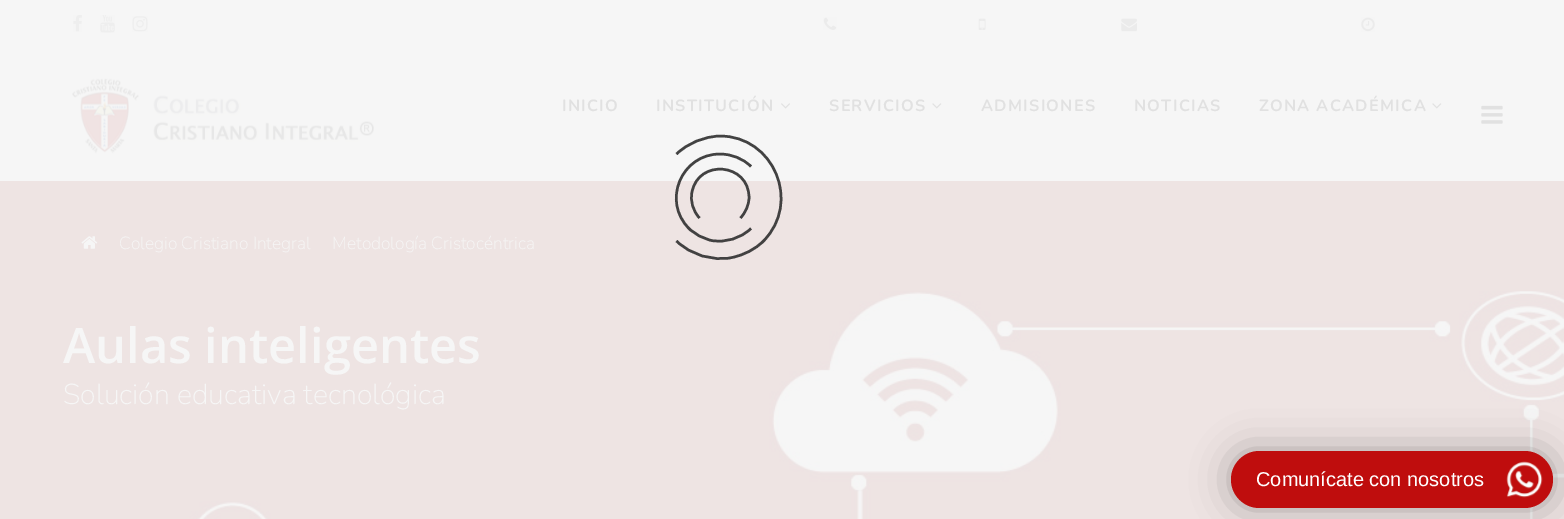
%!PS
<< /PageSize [1564 519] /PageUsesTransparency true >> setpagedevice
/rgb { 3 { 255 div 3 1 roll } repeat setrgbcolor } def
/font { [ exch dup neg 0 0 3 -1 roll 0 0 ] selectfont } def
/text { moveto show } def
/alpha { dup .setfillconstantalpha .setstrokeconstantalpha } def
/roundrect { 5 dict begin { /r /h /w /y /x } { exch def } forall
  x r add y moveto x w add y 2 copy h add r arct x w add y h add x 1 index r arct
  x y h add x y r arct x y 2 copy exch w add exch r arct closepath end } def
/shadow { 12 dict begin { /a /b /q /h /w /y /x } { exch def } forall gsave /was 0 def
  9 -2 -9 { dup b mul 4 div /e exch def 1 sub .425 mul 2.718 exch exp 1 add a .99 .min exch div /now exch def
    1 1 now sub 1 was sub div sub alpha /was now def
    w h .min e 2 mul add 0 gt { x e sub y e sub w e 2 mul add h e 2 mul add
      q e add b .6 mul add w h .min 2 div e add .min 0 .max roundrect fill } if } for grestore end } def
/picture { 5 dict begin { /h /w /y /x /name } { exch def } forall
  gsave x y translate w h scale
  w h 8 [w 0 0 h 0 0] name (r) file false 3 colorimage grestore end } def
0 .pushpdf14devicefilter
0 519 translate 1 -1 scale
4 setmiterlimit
246 246 246 rgb
0 0 1564 519 rectfill
(img_01.rgb) 73 15 9 17 picture
(img_02.rgb) 100 15 15 18 picture
(img_03.rgb) 132 16 16 16 picture
(img_04.rgb) 823 17 14 13 picture
(img_05.rgb) 978 18 8 12 picture
(img_06.rgb) 1121 18 16 14 picture
(img_07.rgb) 1361 17 14 15 picture
(img_08.rgb) 72 78 302 76 picture
(img_09.rgb) 781 103 9 6 picture
(img_10.rgb) 932 103 10 6 picture
(img_10.rgb) 1432 103 10 6 picture
(img_11.rgb) 1481 105 22 19 picture
(img_12.rgb) 0 181 1564 338 picture
0.92 alpha
51 51 51 rgb
2.5 setlinewidth
676.5 154 moveto 11.5 -11 27.5 -17.5 43.5 -18 rcurveto 54 0 81.5 66.5 43.5 105 rcurveto -8.5 8.5 -19.5 14 -31.5 16.5 rcurveto -20 4 -41 -2.5 -55.5 -16.5 rcurveto stroke
751 228.5 moveto -10.5 10 -25.5 14.5 -39.5 12 rcurveto -8.5 -2 -16.5 -6 -22.5 -12 rcurveto -27.5 -27.5 -7.5 -74.5 31 -74.5 rcurveto 11.5 0 23 4.5 31 12.5 rcurveto stroke
699.5 218 moveto -6.5 -7 -9.5 -17 -7.5 -26 rcurveto 6.5 -33.5 57 -29 57 5.5 rcurveto 0 7.5 -3.5 15 -8.5 20.5 rcurveto stroke
1 alpha
(img_13.rgb) 81 236 17 13 picture
0 0 0 rgb
1231 451 322 57 28.5 19 0.3 shadow
191 13 13 rgb
1231 451 322 57 28.5 roundrect fill
(img_14.rgb) 1506 461 37 37 picture
/Nunito-Bold 16.25 font
225 225 225 rgb
562 111 moveto 1.25 0 (INICIO) ashow
656 111 moveto 1.25 0 (INSTITUCIÓN) ashow
829 111 moveto 1.25 0 (SERVICIOS) ashow
981 111 moveto 1.25 0 (ADMISIONES) ashow
1134 111 moveto 1.25 0 (NOTICIAS) ashow
1259 111 moveto 1.25 0 (ZONA ACADÉMICA) ashow
/Nunito-ExtraLight 17.5 font
246 246 246 rgb
(Colegio Cristiano Integral) 119 249 text
(Metodología Cristocéntrica) 332 249 text
/OpenSans-SemiBold 48.75 font
(Aulas inteligentes) 63 363 text
/Nunito-ExtraLight 28.75 font
(Solución educativa tecnológica) 63 404 text
/LiberationSans-Regular 20 font
255 255 255 rgb
(Comunícate con nosotros) 1256 486 text
.poppdf14devicefilter showpage
